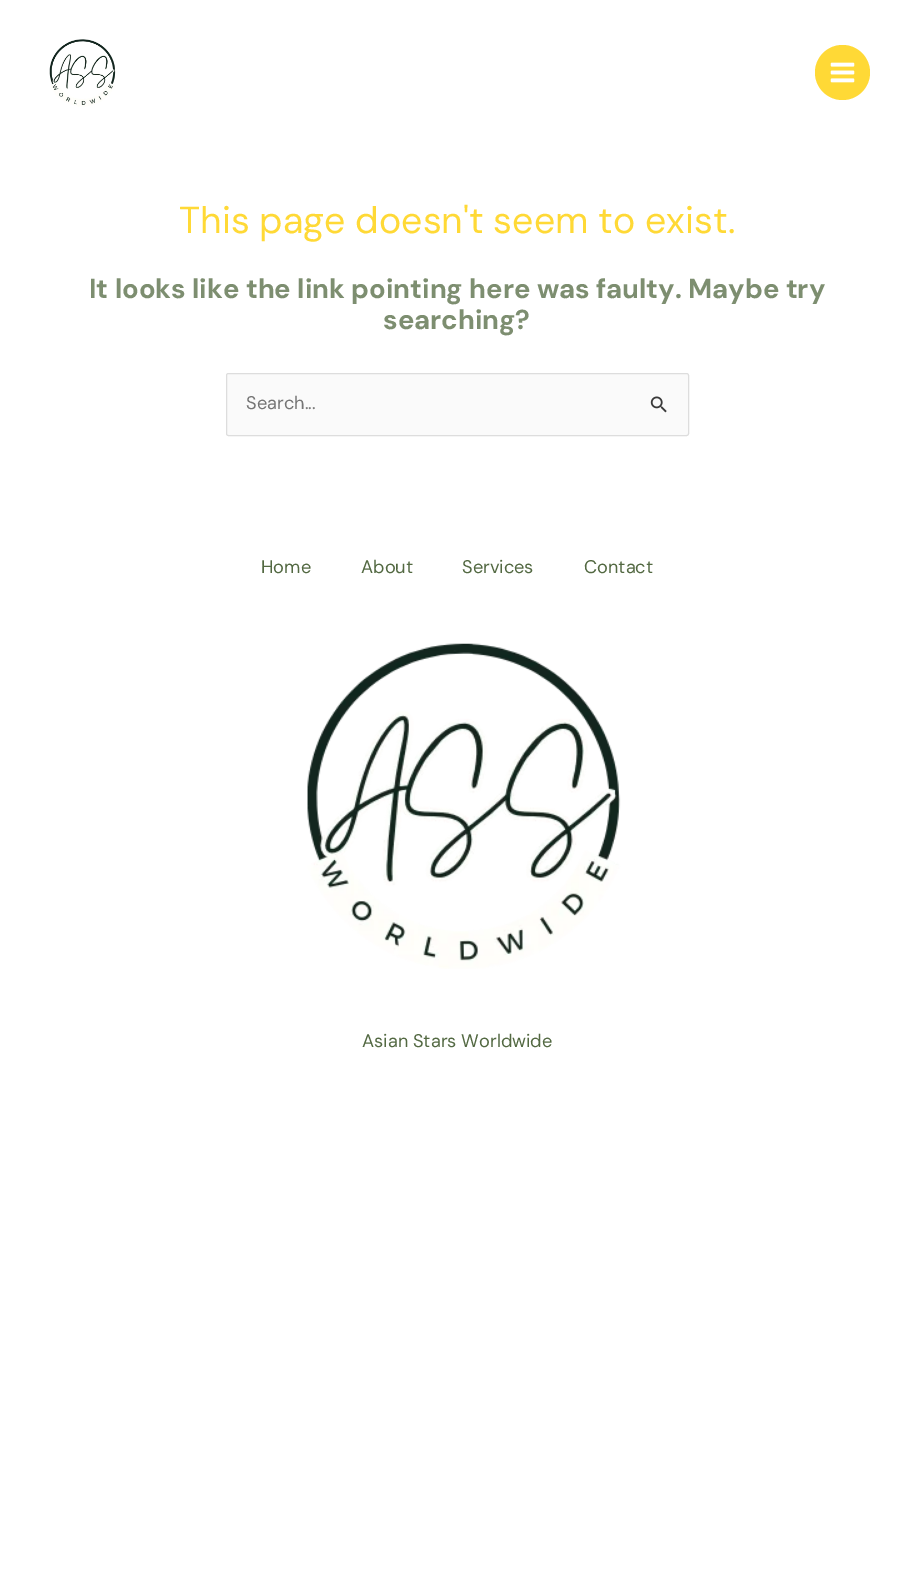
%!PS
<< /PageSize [913 1580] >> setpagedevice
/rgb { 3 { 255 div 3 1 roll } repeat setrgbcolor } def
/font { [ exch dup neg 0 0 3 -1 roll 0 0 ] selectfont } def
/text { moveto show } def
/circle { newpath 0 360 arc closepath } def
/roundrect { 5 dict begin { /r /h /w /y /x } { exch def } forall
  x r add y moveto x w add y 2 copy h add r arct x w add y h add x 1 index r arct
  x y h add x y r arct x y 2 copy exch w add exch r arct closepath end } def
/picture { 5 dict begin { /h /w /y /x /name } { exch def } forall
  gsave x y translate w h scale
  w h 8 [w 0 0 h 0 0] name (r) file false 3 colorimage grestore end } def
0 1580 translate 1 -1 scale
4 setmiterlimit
255 255 255 rgb
0 0 913 1580 rectfill
(img_01.rgb) 49 39 67 68 picture
255 217 54 rgb
842.5 72.5 27.5 circle fill
(img_02.rgb) 830 62 25 21 picture
250 250 250 rgb
226.5 373.5 462 62 2 roundrect gsave fill grestore
221 221 221 rgb
stroke
(img_03.rgb) 650 396 17 17 picture
(img_04.rgb) 307 643 314 326 picture
/DMSans-Regular 37.5 font
255 217 54 rgb
(This page doesn't seem to exist.) 179 233 text
/DMSans-Bold 27.35 font
125 142 112 rgb
(It looks like the link pointing here was faulty. Maybe try) 89 298 text
(searching?) 383 329 text
/DMSans-Regular 18.25 font
117 117 117 rgb
(Search...) 246 409 text
83 105 66 rgb
(Home) 261 573 text
(About) 361 573 text
(Services) 462 573 text
(Contact) 584 573 text
(Asian Stars Worldwide) 362 1047 text
showpage
